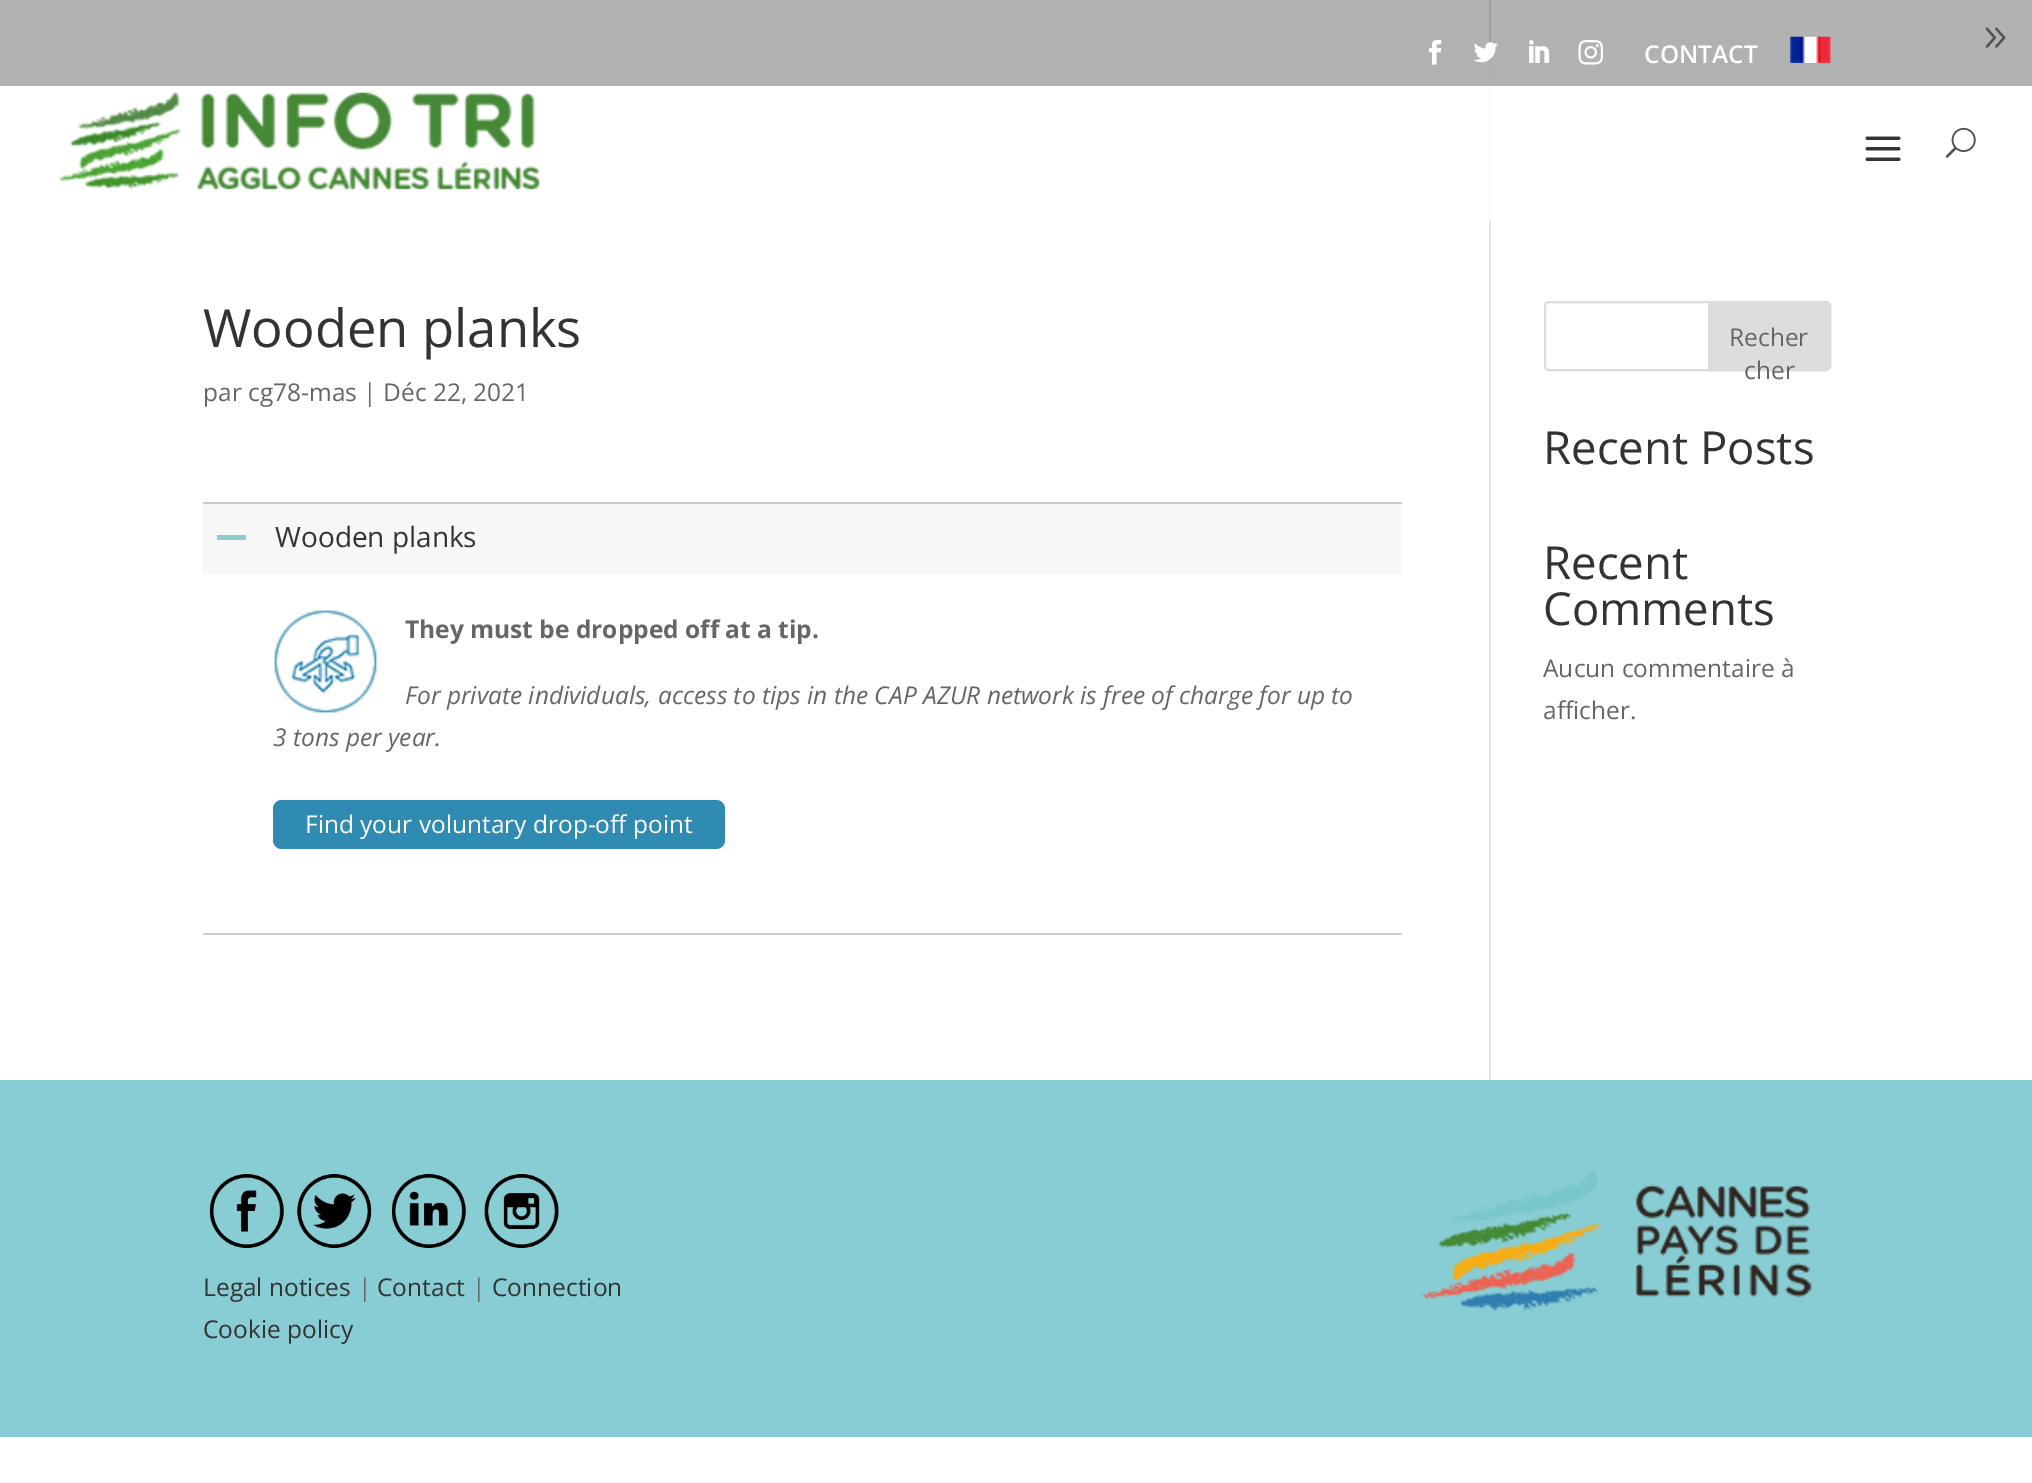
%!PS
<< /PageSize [2032 1483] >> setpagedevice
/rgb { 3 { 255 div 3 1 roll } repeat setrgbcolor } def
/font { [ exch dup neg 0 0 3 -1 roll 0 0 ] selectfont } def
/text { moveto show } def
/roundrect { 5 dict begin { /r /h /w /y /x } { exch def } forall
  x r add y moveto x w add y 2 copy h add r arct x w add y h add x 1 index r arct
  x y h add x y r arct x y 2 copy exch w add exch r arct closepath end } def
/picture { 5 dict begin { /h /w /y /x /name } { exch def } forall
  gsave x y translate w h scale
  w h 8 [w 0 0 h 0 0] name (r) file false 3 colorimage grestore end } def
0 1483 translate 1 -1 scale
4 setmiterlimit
255 255 255 rgb
0 0 2032 1483 rectfill
177 177 177 rgb
0 0 2032 86 rectfill
(img_01.rgb) 1428 40 14 25 picture
160 160 160 rgb
1489 0 2 61 rectfill
174 174 174 rgb
1489 61 2 25 rectfill
(img_02.rgb) 1473 42 25 21 picture
(img_03.rgb) 1529 40 21 23 picture
(img_04.rgb) 1578 40 25 25 picture
(img_05.rgb) 1790 36 41 27 picture
(img_06.rgb) 59 92 481 98 picture
(img_07.rgb) 1865 136 36 25 picture
(img_08.rgb) 1945 127 31 31 picture
(img_09.rgb) 1985 27 21 21 picture
226 226 226 rgb
1489 221 2 859 rectfill
250 250 250 rgb
1489 86 2 135 rectfill
204 204 204 rgb
203 502 1199 2 rectfill
203 933 1199 2 rectfill
247 247 247 rgb
203 504 1199 70 rectfill
136 205 211 rgb
217 535 29 5 rectfill
(img_10.rgb) 274 610 103 103 picture
47 139 178 rgb
273 800 452 49 9 roundrect fill
221 221 221 rgb
2 setlinewidth
1545 302 285 68 4 roundrect stroke
1709 302 moveto 117 0 rlineto 2 0 4 2 4 4 rcurveto 0 60 rlineto 0 2 -2 4 -4 4 rcurveto -117 0 rlineto closepath gsave fill grestore
stroke
136 205 211 rgb
0 1080 2032 357 rectfill
(img_11.rgb) 209 1173 75 76 picture
(img_12.rgb) 297 1173 75 76 picture
(img_13.rgb) 391 1173 75 76 picture
(img_14.rgb) 484 1173 75 76 picture
(img_15.rgb) 1421 1169 391 143 picture
/OpenSans-SemiBold 24.5 font
255 255 255 rgb
(CONTACT) 1644 63 text
/OpenSans-Regular 52.5 font
51 51 51 rgb
(Wooden planks) 203 347 text
/OpenSans-Regular 24.5 font
102 102 102 rgb
(par cg78-mas | Déc 22, 2021) 203 401 text
/OpenSans-Regular 28 font
51 51 51 rgb
(Wooden planks) 275 547 text
/OpenSans-Bold 24.5 font
102 102 102 rgb
(They must be dropped off at a tip.) 405 638 text
/OpenSans-Italic 24.5 font
(For private individuals, access to tips in the CAP AZUR network is free of charge for up to) 405 704 text
(3 tons per year.) 273 746 text
/OpenSans-Regular 24.5 font
255 255 255 rgb
(Find your voluntary drop-off point) 305 833 text
102 102 102 rgb
(Recher) 1729 346 text
(cher) 1744 379 text
/OpenSans-Regular 45.5 font
51 51 51 rgb
(Recent Posts) 1543 464 text
(Recent) 1543 579 text
(Comments) 1543 625 text
/OpenSans-Regular 24.5 font
102 102 102 rgb
(Aucun commentaire à) 1543 677 text
(afficher.) 1543 719 text
51 51 51 rgb
(Legal notices) 203 1296 text
102 102 102 rgb
(|) 358 1296 text
51 51 51 rgb
(Contact) 377 1296 text
102 102 102 rgb
(|) 472 1296 text
51 51 51 rgb
(Connection) 492 1296 text
(Cookie policy) 203 1338 text
showpage
